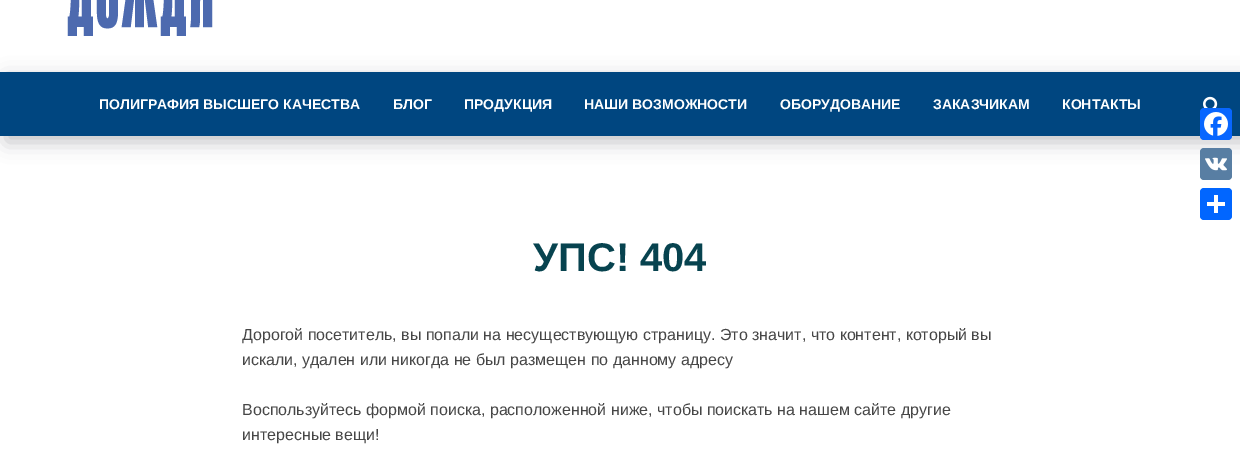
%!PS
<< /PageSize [1240 465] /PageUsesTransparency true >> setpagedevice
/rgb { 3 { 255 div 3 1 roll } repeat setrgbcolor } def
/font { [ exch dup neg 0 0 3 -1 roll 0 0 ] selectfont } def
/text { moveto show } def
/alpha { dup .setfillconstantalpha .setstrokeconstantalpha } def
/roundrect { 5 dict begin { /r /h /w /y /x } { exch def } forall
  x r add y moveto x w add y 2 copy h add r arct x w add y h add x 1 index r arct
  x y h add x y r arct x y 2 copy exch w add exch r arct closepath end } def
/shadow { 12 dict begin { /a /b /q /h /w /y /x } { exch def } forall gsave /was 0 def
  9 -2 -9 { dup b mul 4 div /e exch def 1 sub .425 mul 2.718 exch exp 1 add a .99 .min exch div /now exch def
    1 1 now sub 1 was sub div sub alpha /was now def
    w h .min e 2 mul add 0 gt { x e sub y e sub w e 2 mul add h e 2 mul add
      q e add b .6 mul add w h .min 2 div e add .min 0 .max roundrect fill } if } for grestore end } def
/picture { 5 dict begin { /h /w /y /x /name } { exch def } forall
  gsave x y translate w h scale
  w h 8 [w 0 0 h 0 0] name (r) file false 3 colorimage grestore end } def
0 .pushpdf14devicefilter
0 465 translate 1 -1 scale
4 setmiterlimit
255 255 255 rgb
0 0 1240 465 rectfill
(img_01.rgb) 67 0 146 36 picture
48 48 60 rgb
6 78 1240 64 0 10 0.3 shadow
0 70 128 rgb
0 72 1240 64 rectfill
(img_02.rgb) 1203 96 15 12 picture
8 102 255 rgb
1200 108 32 32 4 roundrect fill
(img_03.rgb) 1204 112 24 24 picture
88 126 163 rgb
1200 148 32 32 4 roundrect fill
(img_04.rgb) 1205 157 22 14 picture
1 102 255 rgb
1200 188 32 32 4 roundrect fill
255 255 255 rgb
1214 195 4 18 rectfill
1207 202 18 4 rectfill
/LiberationSans-Bold 14 font
(ПОЛИГРАФИЯ ВЫСШЕГО КАЧЕСТВА) 99 109 text
(БЛОГ) 393 109 text
(ПРОДУКЦИЯ) 464 109 text
(НАШИ ВОЗМОЖНОСТИ) 584 109 text
(ОБОРУДОВАНИЕ) 780 109 text
(ЗАКАЗЧИКАМ) 933 109 text
(КОНТАКТЫ) 1062 109 text
/LiberationSans-Bold 40 font
7 67 79 rgb
(УПС! 404) 533 271 text
/LiberationSans-Regular 16 font
70 70 70 rgb
(Дорогой посетитель, вы попали на несуществующую страницу. Это значит, что контент, который вы) 242 340 text
(искали, удален или никогда не был размещен по данному адресу) 242 365 text
(Воспользуйтесь формой поиска, расположенной ниже, чтобы поискать на нашем сайте другие) 242 415 text
(интересные вещи!) 242 440 text
.poppdf14devicefilter showpage
